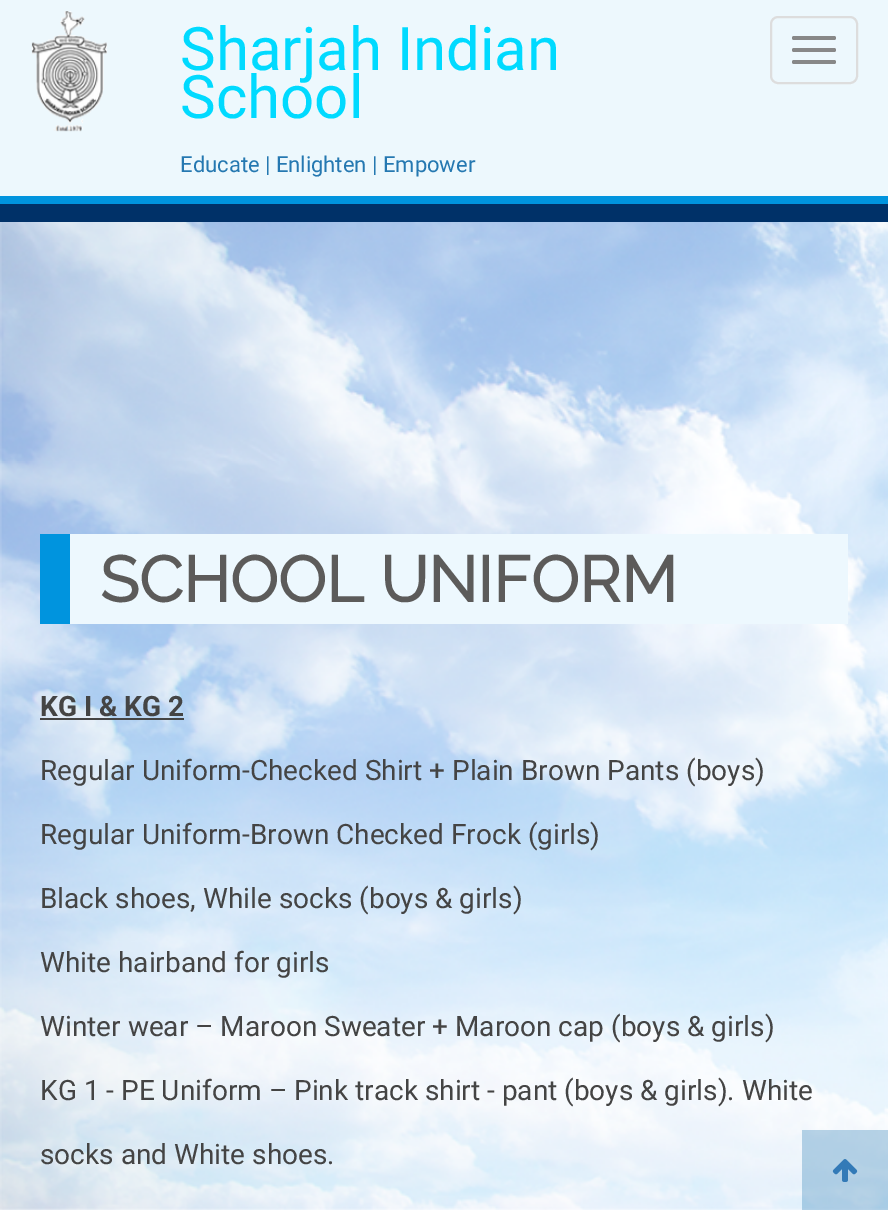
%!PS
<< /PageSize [888 1210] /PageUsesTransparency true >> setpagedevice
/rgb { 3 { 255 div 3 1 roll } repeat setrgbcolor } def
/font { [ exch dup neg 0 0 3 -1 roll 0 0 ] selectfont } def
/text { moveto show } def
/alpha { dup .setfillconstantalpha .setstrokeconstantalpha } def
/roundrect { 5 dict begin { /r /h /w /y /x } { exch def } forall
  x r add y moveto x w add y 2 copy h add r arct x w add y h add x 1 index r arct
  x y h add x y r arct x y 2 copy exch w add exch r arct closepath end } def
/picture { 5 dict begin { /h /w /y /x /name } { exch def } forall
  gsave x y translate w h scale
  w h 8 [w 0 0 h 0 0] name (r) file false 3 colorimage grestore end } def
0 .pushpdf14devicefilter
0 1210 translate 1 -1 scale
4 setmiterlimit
255 255 255 rgb
0 0 888 1210 rectfill
0 49 104 rgb
0 204 888 18 rectfill
237 248 253 rgb
0 0 888 196 rectfill
0 148 222 rgb
0 196 888 8 rectfill
(img_01.rgb) 31 11 76 121 picture
221 221 221 rgb
2 setlinewidth
771 17 86 66 7 roundrect stroke
136 136 136 rgb
792 36 44 4 2 roundrect fill
792 48 44 4 2 roundrect fill
792 60 44 4 2 roundrect fill
(img_02.rgb) 0 222 888 988 picture
237 248 254 rgb
70 534 778 90 rectfill
0 148 222 rgb
40 534 30 90 rectfill
68 68 68 rgb
40 718 144 2 rectfill
0.3 alpha
33 118 176 rgb
802 1130 86 80 rectfill
1 alpha
(img_03.rgb) 832 1159 26 23 picture
/Roboto-Regular 60 font
0 218 255 rgb
(Sharjah Indian) 180 70 text
(School) 180 118 text
/Roboto-Regular 22 font
37 120 177 rgb
(Educate | Enlighten | Empower) 180 172 text
/Raleway-Bold 64 font
92 91 90 rgb
(SCHOOL UNIFORM) 100 602 text
/Roboto-Bold 28 font
68 68 68 rgb
(KG I & KG 2) 40 716 text
/Roboto-Regular 28 font
(Regular Uniform-Checked Shirt + Plain Brown Pants \(boys\)) 40 780 text
(Regular Uniform-Brown Checked Frock \(girls\)) 40 844 text
(Black shoes, While socks \(boys & girls\)) 40 908 text
(White hairband for girls) 40 972 text
(Winter wear – Maroon Sweater + Maroon cap \(boys & girls\)) 40 1036 text
(KG 1 - PE Uniform – Pink track shirt - pant \(boys & girls\). White) 40 1100 text
(socks and White shoes.) 40 1164 text
.poppdf14devicefilter showpage
